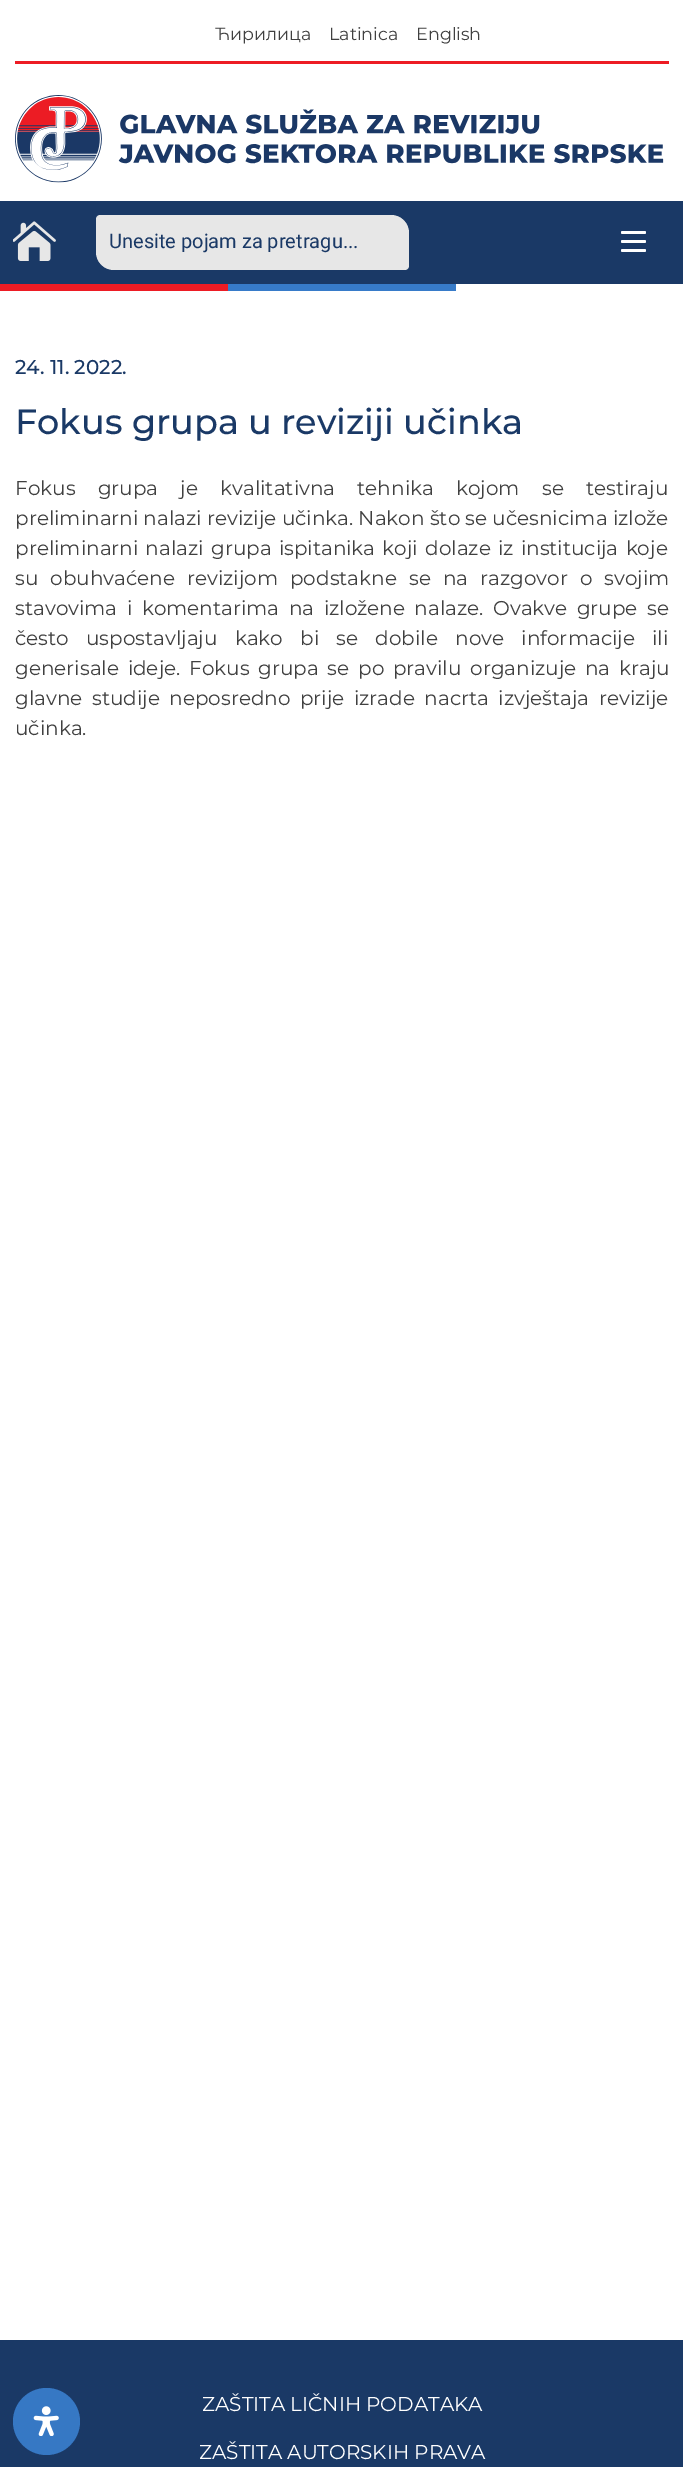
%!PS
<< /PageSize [683 2467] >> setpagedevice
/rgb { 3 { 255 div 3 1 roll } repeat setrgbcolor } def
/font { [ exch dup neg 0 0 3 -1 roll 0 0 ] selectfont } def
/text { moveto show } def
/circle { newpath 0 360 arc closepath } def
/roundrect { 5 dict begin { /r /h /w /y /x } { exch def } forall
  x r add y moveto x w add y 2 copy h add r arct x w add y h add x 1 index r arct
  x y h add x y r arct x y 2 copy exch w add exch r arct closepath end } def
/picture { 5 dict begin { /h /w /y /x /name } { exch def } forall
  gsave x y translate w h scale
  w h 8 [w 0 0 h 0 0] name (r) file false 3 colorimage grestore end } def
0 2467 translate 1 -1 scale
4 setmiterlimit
255 255 255 rgb
0 0 683 2467 rectfill
237 28 36 rgb
15 61 654 3 rectfill
(img_01.rgb) 15 95 649 88 picture
26 57 102 rgb
0 201 683 10 rectfill
0 211 683 73 rectfill
(img_02.rgb) 13 221 43 40 picture
231 231 231 rgb
100 215 moveto 291 0 rlineto 10 0 18 8 18 18 rcurveto 0 33 rlineto 0 2 -2 4 -4 4 rcurveto -291 0 rlineto -10 0 -18 -8 -18 -18 rcurveto 0 -33 rlineto 0 -2 2 -4 4 -4 rcurveto closepath fill
255 255 255 rgb
621 231 25 3 1.5 roundrect fill
621 240 25 3 1.5 roundrect fill
621 249 25 3 1.5 roundrect fill
237 28 36 rgb
0 284 228 7 rectfill
55 123 201 rgb
228 284 228 7 rectfill
26 57 102 rgb
0 2340 683 127 rectfill
54 120 196 rgb
46.5 2421.5 33.5 circle fill
(img_03.rgb) 33 2406 26 30 picture
/Montserrat-Regular 17.5 font
64 64 64 rgb
(Ћирилица) 215 40 text
(Latinica) 329 40 text
(English) 416 40 text
/Roboto-Regular 20 font
26 57 102 rgb
(Unesite pojam za pretragu...) 109 248 text
/Montserrat-Medium 20 font
(24. 11. 2022.) 15 374 text
/Montserrat-Medium 35 font
(Fokus grupa u reviziji učinka) 15 434 text
/Montserrat-Regular 20 font
64 64 64 rgb
15 495 moveto 17 0 32 (Fokus grupa je kvalitativna tehnika kojom se testiraju) widthshow
(preliminarni nalazi revizije učinka. Nakon što se učesnicima izlože) 15 525 text
15 555 moveto 2 0 32 (preliminarni nalazi grupa ispitanika koji dolaze iz institucija koje) widthshow
15 585 moveto 6.75 0 32 (su obuhvaćene revizijom podstakne se na razgovor o svojim) widthshow
15 615 moveto 4.25 0 32 (stavovima i komentarima na izložene nalaze. Ovakve grupe se) widthshow
15 645 moveto 12 0 32 (često uspostavljaju kako bi se dobile nove informacije ili) widthshow
15 675 moveto 3.5 0 32 (generisale ideje. Fokus grupa se po pravilu organizuje na kraju) widthshow
15 705 moveto 4.25 0 32 (glavne studije neposredno prije izrade nacrta izvještaja revizije) widthshow
(učinka.) 15 735 text
255 255 255 rgb
(ZAŠTITA LIČNIH PODATAKA) 202 2411 text
(ZAŠTITA AUTORSKIH PRAVA) 199 2459 text
showpage
